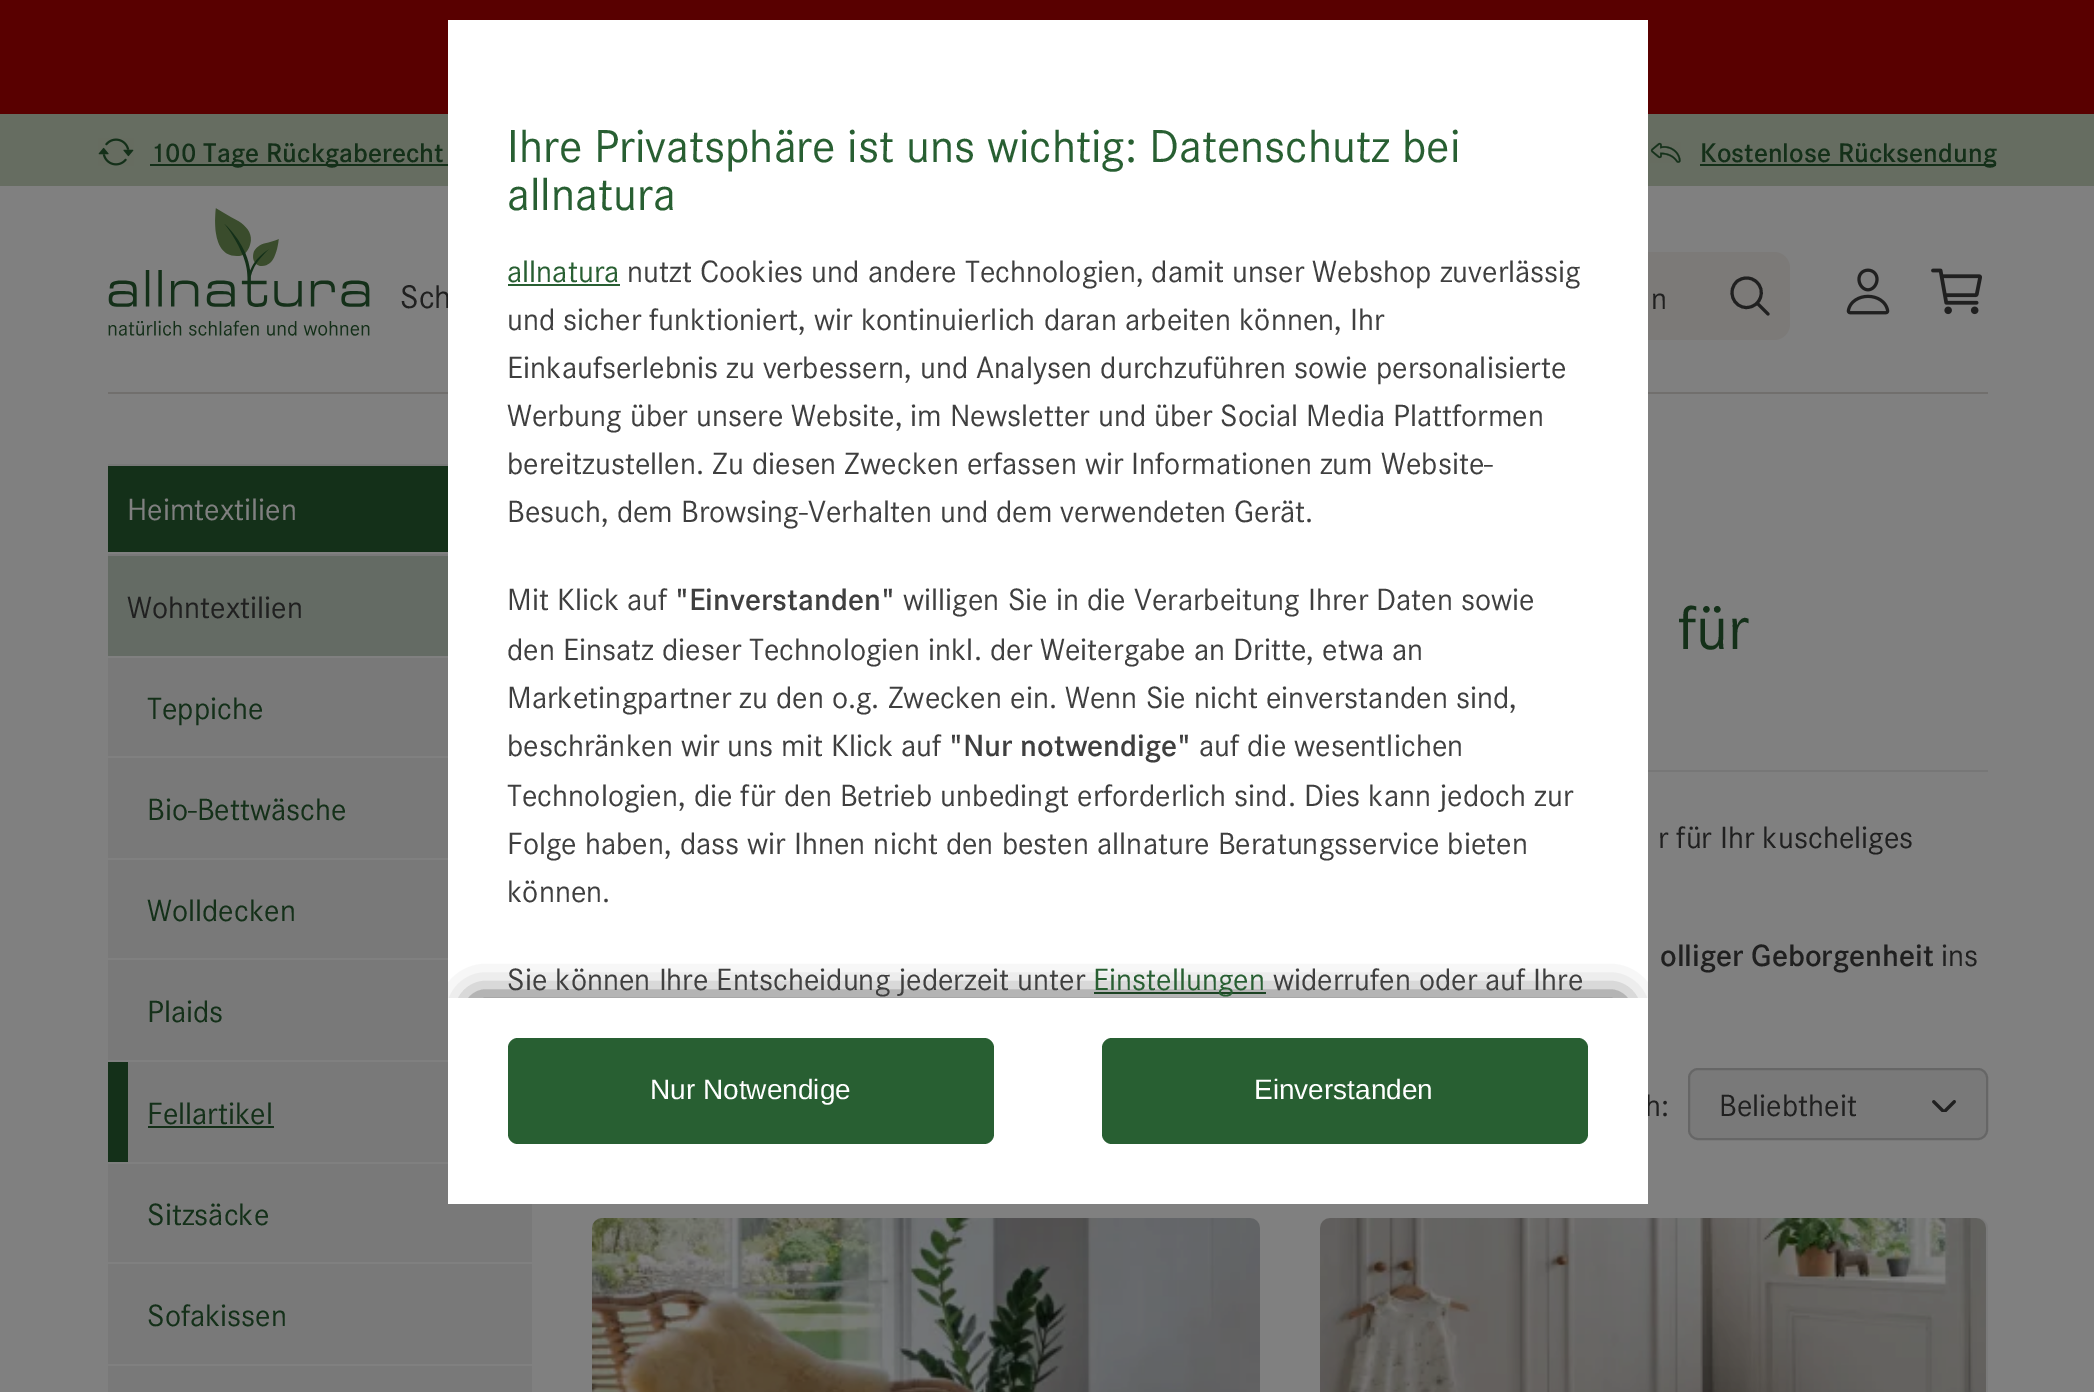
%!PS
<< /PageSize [2094 1392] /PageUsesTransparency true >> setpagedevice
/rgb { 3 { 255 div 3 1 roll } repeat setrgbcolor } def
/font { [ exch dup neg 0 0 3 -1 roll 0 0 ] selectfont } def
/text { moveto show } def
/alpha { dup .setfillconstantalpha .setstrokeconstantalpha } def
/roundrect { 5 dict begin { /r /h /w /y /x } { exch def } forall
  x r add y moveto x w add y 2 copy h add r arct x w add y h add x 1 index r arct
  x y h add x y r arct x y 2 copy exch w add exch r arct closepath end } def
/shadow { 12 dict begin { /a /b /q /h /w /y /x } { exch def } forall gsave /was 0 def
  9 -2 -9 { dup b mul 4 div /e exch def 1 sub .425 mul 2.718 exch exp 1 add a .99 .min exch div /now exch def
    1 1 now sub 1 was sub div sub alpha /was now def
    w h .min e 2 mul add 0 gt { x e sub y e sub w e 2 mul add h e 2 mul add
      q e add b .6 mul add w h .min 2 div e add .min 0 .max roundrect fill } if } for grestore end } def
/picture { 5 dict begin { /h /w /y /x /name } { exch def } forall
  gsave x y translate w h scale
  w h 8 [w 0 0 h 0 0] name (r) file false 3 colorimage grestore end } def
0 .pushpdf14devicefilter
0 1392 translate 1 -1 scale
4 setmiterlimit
128 128 128 rgb
0 0 2094 1392 rectfill
89 0 0 rgb
0 0 2094 114 rectfill
102 109 97 rgb
0 114 2094 72 rectfill
(img_01.rgb) 98 138 36 28 picture
20 48 25 rgb
150 164 300 2 rectfill
(img_02.rgb) 1650 142 31 21 picture
1700 164 296 2 rectfill
113 111 109 rgb
108 392 1880 2 rectfill
(img_03.rgb) 108 208 262 128 picture
124 122 120 rgb
1370 252 420 88 16 roundrect fill
32 32 32 rgb
3 setlinewidth
1746.5 278 moveto -3 0 -6.5 1 -9 3 rcurveto -11 9 -4.5 27 9.5 26.5 rcurveto 13.5 -0.5 19.5 -17.5 9 -26 rcurveto -2.5 -2.5 -6 -3.5 -9.5 -3.5 rcurveto closepath stroke
1 setlinecap
1757.5 303.5 moveto 10.5 10.5 rlineto stroke
(img_04.rgb) 1846 268 44 47 picture
(img_05.rgb) 1931 268 51 47 picture
20 48 25 rgb
108 466 340 86 rectfill
121 121 121 rgb
108 464 340 2 rectfill
108 554 340 2 rectfill
100 107 100 rgb
108 556 340 100 rectfill
121 121 121 rgb
108 658 340 98 rectfill
108 758 340 100 rectfill
108 860 340 98 rectfill
108 960 340 100 rectfill
128 1062 320 100 rectfill
20 48 25 rgb
108 1062 20 100 rectfill
148 1126 126 2 rectfill
121 121 121 rgb
108 1164 424 98 rectfill
108 1264 424 100 rectfill
108 1366 424 26 rectfill
119 119 119 rgb
1648 770 340 2 rectfill
121 121 121 rgb
1689 1069 298 70 9 roundrect gsave fill grestore
102 102 102 rgb
2 setlinewidth
0 setlinecap
stroke
(img_06.rgb) 1932 1100 24 12 picture
122 122 122 rgb
592 1218 668 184 10 roundrect fill
(img_07.rgb) 592 1218 668 174 picture
1320 1218 668 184 10 roundrect fill
(img_08.rgb) 1320 1218 666 174 picture
/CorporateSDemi-Regular 28 font
20 48 25 rgb
(100 Tage Rückgaberecht) 150 162 text
(Kostenlose Rücksendung) 1700 162 text
/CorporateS-Regular 34 font
32 32 32 rgb
(Sch) 400 308 text
255 255 255 rgb
448 20 1200 978 rectfill
40 95 50 rgb
1094 992 172 2 rectfill
gsave
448 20 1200 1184 rectclip
0 0 0 rgb
476 1002 1144 150 0 17 1 shadow
grestore
/CorporateS-Regular 32 font
63 63 63 rgb
(widerrufen oder auf Ihre) 1273 990 text
40 95 50 rgb
(Einstellungen) 1093 990 text
63 63 63 rgb
(Sie können Ihre Entscheidung jederzeit unter) 507 990 text
(können.) 507 902 text
(Folge haben, dass wir Ihnen nicht den besten allnature Beratungsservice bieten) 507 854 text
(Technologien, die für den Betrieb unbedingt erforderlich sind. Dies kann jedoch zur) 507 806 text
(auf die wesentlichen) 1199 756 text
/CorporateSDemi-Regular 32 font
("Nur notwendige") 949 756 text
/CorporateS-Regular 32 font
(beschränken wir uns mit Klick auf) 507 756 text
(Marketingpartner zu den o.g. Zwecken ein. Wenn Sie nicht einverstanden sind,) 507 708 text
(den Einsatz dieser Technologien inkl. der Weitergabe an Dritte, etwa an) 507 660 text
(willigen Sie in die Verarbeitung Ihrer Daten sowie) 903 610 text
/CorporateSDemi-Regular 32 font
("Einverstanden") 675 610 text
/CorporateS-Regular 32 font
(Mit Klick auf) 507 610 text
(Besuch, dem Browsing-Verhalten und dem verwendeten Gerät.) 507 522 text
(bereitzustellen. Zu diesen Zwecken erfassen wir Informationen zum Website-) 507 474 text
(Werbung über unsere Website, im Newsletter und über Social Media Plattformen) 507 426 text
(Einkaufserlebnis zu verbessern, und Analysen durchzuführen sowie personalisierte) 507 378 text
(und sicher funktioniert, wir kontinuierlich daran arbeiten können, Ihr) 507 330 text
(nutzt Cookies und andere Technologien, damit unser Webshop zuverlässig) 627 282 text
40 95 50 rgb
(allnatura) 507 282 text
508 284 112 2 rectfill
/CorporateS-Regular 48 font
(allnatura) 507 210 text
(Ihre Privatsphäre ist uns wichtig: Datenschutz bei) 507 162 text
/CorporateS-Regular 32 font
32 32 32 rgb
(n) 1651 309 text
128 128 128 rgb
(Heimtextilien) 127 520 text
32 32 32 rgb
(Wohntextilien) 127 618 text
20 48 25 rgb
(Teppiche) 147 719 text
(Bio-Bettwäsche) 147 820 text
(Wolldecken) 147 921 text
(Plaids) 147 1022 text
(Fellartikel) 147 1124 text
(Sitzsäcke) 147 1225 text
(Sofakissen) 147 1326 text
/CorporateS-Regular 64 font
(für) 1678 649 text
/CorporateS-Regular 32 font
32 32 32 rgb
(r für Ihr kuscheliges) 1658 848 text
/CorporateSDemi-Regular 32 font
(olliger Geborgenheit) 1660 966 text
/CorporateS-Regular 32 font
(ins) 1941 966 text
(h:) 1645 1116 text
255 255 255 rgb
448 998 1200 206 rectfill
40 95 50 rgb
508 1038 486 106 10 roundrect fill
/LiberationSans-Regular 28 font
255 255 255 rgb
(Nur Notwendige) 650 1099 text
40 95 50 rgb
1102 1038 486 106 10 roundrect fill
255 255 255 rgb
(Einverstanden) 1254 1099 text
/CorporateS-Regular 32 font
32 32 32 rgb
(Beliebtheit) 1719 1116 text
.poppdf14devicefilter showpage
